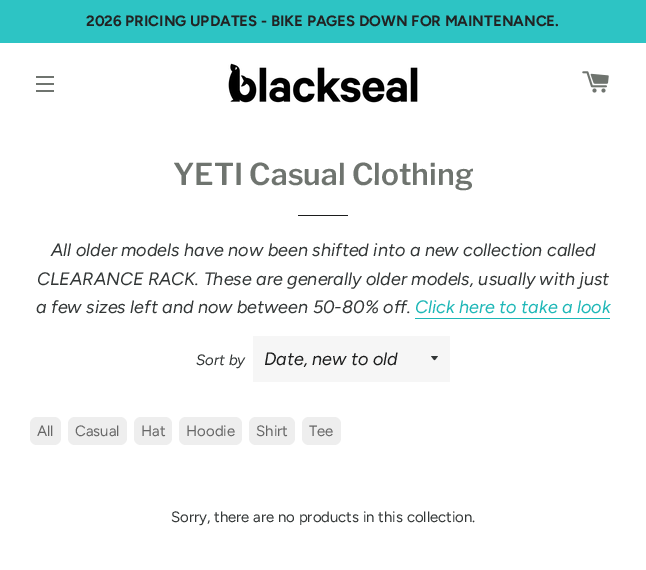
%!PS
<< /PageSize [646 570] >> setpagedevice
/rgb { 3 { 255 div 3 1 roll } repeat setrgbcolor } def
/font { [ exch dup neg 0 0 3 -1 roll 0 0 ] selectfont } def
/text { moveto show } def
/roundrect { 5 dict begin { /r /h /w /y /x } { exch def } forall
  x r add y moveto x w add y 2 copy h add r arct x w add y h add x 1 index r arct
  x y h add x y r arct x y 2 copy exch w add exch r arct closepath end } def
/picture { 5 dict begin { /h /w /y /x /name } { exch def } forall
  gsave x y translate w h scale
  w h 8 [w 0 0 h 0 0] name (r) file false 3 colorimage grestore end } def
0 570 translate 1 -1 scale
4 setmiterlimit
255 255 255 rgb
0 0 646 570 rectfill
45 196 196 rgb
0 0 646 43 rectfill
111 116 111 rgb
36 76 18 2 rectfill
36 83 18 2 rectfill
36 90 18 2 rectfill
(img_01.rgb) 228 63 190 40 picture
(img_02.rgb) 582 71 27 22 picture
28 29 29 rgb
298 215 50 1 rectfill
29 183 183 rgb
415 318 195 1 rectfill
246 246 246 rgb
253 336 197 46 rectfill
50 54 54 rgb
431 356 moveto 4.5 5.5 2.5 5.5 7 0 rcurveto closepath fill
238 238 238 rgb
30 417 31 28 7 roundrect fill
68 417 59 28 7 roundrect fill
134 417 38 28 7 roundrect fill
179 417 63 28 7 roundrect fill
249 417 46 28 7 roundrect fill
302 417 39 28 7 roundrect fill
/Figtree-Bold 15 font
34 35 35 rgb
(2026 PRICING UPDATES - BIKE PAGES DOWN FOR MAINTENANCE.) 86 26 text
/LibreFranklin-SemiBold 30 font
111 116 111 rgb
(YETI Casual Clothing) 173 185 text
/Figtree-Italic 18 font
50 54 54 rgb
(All older models have now been shifted into a new collection called) 51 256 text
(CLEARANCE RACK. These are generally older models, usually with just) 37 285 text
(a few sizes left and now between 50-80% off.) 36 313 text
29 183 183 rgb
(Click here to take a look) 415 313 text
/Figtree-Italic 15 font
50 54 54 rgb
(Sort by) 196 365 text
/Figtree-Italic 18 font
28 29 29 rgb
(Date, new to old) 264 365 text
/Figtree-Regular 15 font
102 102 102 rgb
(All) 37 436 text
(Casual) 75 436 text
(Hat) 141 436 text
(Hoodie) 186 436 text
(Shirt) 256 436 text
(Tee) 309 436 text
50 54 54 rgb
(Sorry, there are no products in this collection.) 171 522 text
showpage
